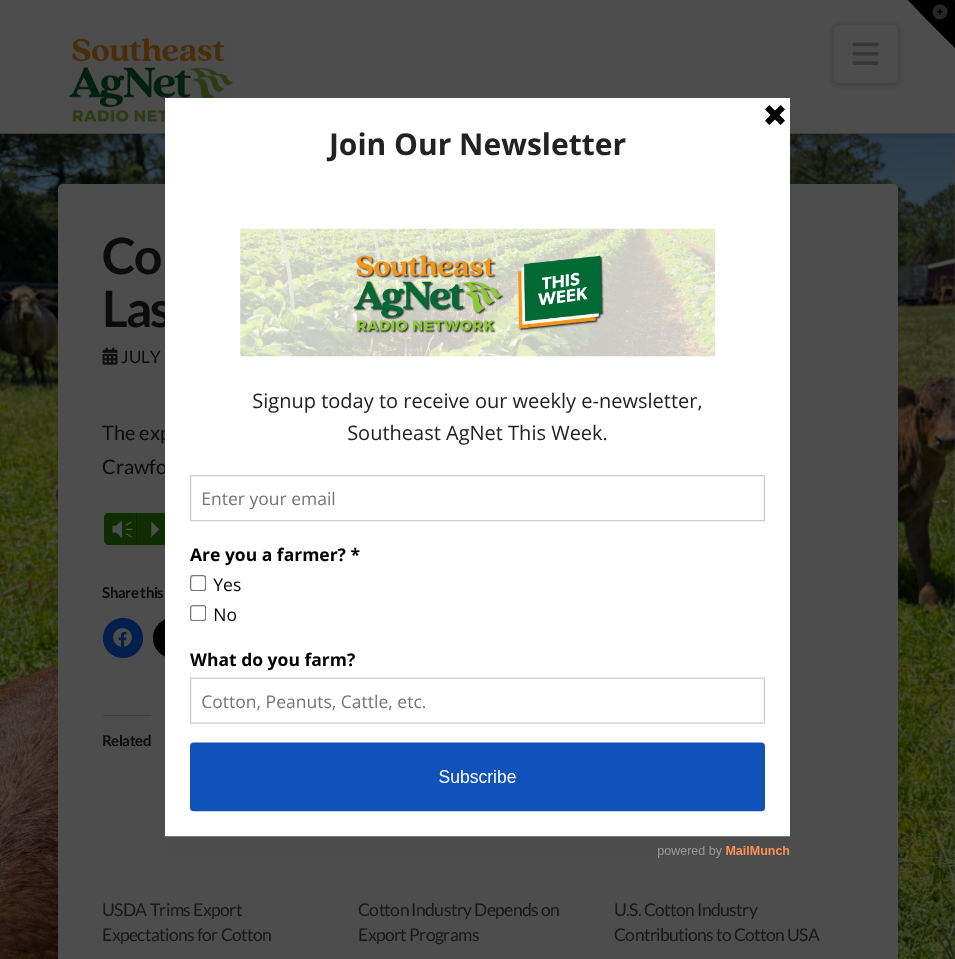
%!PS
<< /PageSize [955 959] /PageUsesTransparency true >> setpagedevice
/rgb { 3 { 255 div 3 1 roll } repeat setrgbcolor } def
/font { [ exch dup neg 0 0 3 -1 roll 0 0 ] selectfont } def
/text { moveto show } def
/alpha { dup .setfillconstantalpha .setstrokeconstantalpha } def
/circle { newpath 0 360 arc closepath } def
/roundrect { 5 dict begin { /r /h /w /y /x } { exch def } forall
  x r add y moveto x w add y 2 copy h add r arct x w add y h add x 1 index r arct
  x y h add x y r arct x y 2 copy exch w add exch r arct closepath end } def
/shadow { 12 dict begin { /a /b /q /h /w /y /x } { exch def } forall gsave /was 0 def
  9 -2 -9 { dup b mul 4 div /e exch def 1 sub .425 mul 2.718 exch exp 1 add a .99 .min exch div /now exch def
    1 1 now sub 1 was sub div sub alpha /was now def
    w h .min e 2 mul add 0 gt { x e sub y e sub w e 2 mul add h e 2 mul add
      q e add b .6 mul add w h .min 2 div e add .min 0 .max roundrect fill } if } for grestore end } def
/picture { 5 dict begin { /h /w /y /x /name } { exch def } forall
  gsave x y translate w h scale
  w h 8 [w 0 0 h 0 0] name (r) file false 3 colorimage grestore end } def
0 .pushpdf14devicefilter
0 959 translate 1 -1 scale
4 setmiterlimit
255 255 255 rgb
0 0 955 959 rectfill
(img_02.rgb) 0 134 955 825 picture
0 0 0 rgb
0 3 955 133 0 3.5 0.13 shadow
77 77 77 rgb
0 0 955 133 rectfill
0 0 0 rgb
908 0 moveto 47 0 rlineto -24 24 rlineto closepath fill
955 0 moveto 0 48 rlineto -24 -24 rlineto closepath fill
(img_03.rgb) 932 4 16 16 picture
61 61 61 rgb
0 133 955 1 rectfill
(img_04.rgb) 68 38 166 84 picture
0 0 0 rgb
834 26 64 58 5 3 0.25 shadow
77 77 77 rgb
834 25 64 58 5 roundrect fill
(img_05.rgb) 852 42 27 23 picture
58 184 840 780 5 roundrect fill
(img_06.rgb) 102 347 16 18 picture
15 46 0 rgb
109 513 moveto 27 0 rlineto 0 32 rlineto -27 0 rlineto -3 0 -5 -2 -5 -5 rcurveto 0 -22 rlineto 0 -3 2 -5 5 -5 rcurveto closepath fill
17 50 0 rgb
135 513 1 32 rectfill
15 46 0 rgb
137 513 28 32 rectfill
15 31 0 rgb
136 513 1 32 rectfill
2 31 77 rgb
123 638 20 circle fill
(img_07.rgb) 113 628 19 19 picture
0 0 0 rgb
173 638 20 circle fill
(img_08.rgb) 164 629 1 17 picture
61 61 61 rgb
103 715 48 1 rectfill
/Lato-Bold 50 font
12 12 12 rgb
102 274 moveto -2 0 (Co) ashow
102 327 moveto -2 0 (Las) ashow
/Lato-Regular 17 font
(JULY) 121 363 text
/Lato-Regular 20 font
(The exp) 102 440 text
(Crawfo) 102 474 text
(img_01.rgb) 165 98 625 760 picture
/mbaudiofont-Regular 25 font
77 77 77 rgb
(Vm) 111 537 text
(P) 142 537 text
/Lato-Bold 15 font
12 12 12 rgb
102 598 moveto -0.5 0 (Share this) ashow
102 746 moveto -0.5 0 (Related) ashow
/Lato-Regular 17.5 font
25 25 25 rgb
102 916 moveto -0.6 0 (USDA Trims Export) ashow
102 941 moveto -0.6 0 (Expectations for Cotton) ashow
358 916 moveto -0.6 0 (Cotton Industry Depends on) ashow
358 941 moveto -0.6 0 (Export Programs) ashow
614 916 moveto -0.6 0 (U.S. Cotton Industry) ashow
614 941 moveto -0.6 0 (Contributions to Cotton USA) ashow
.poppdf14devicefilter showpage
